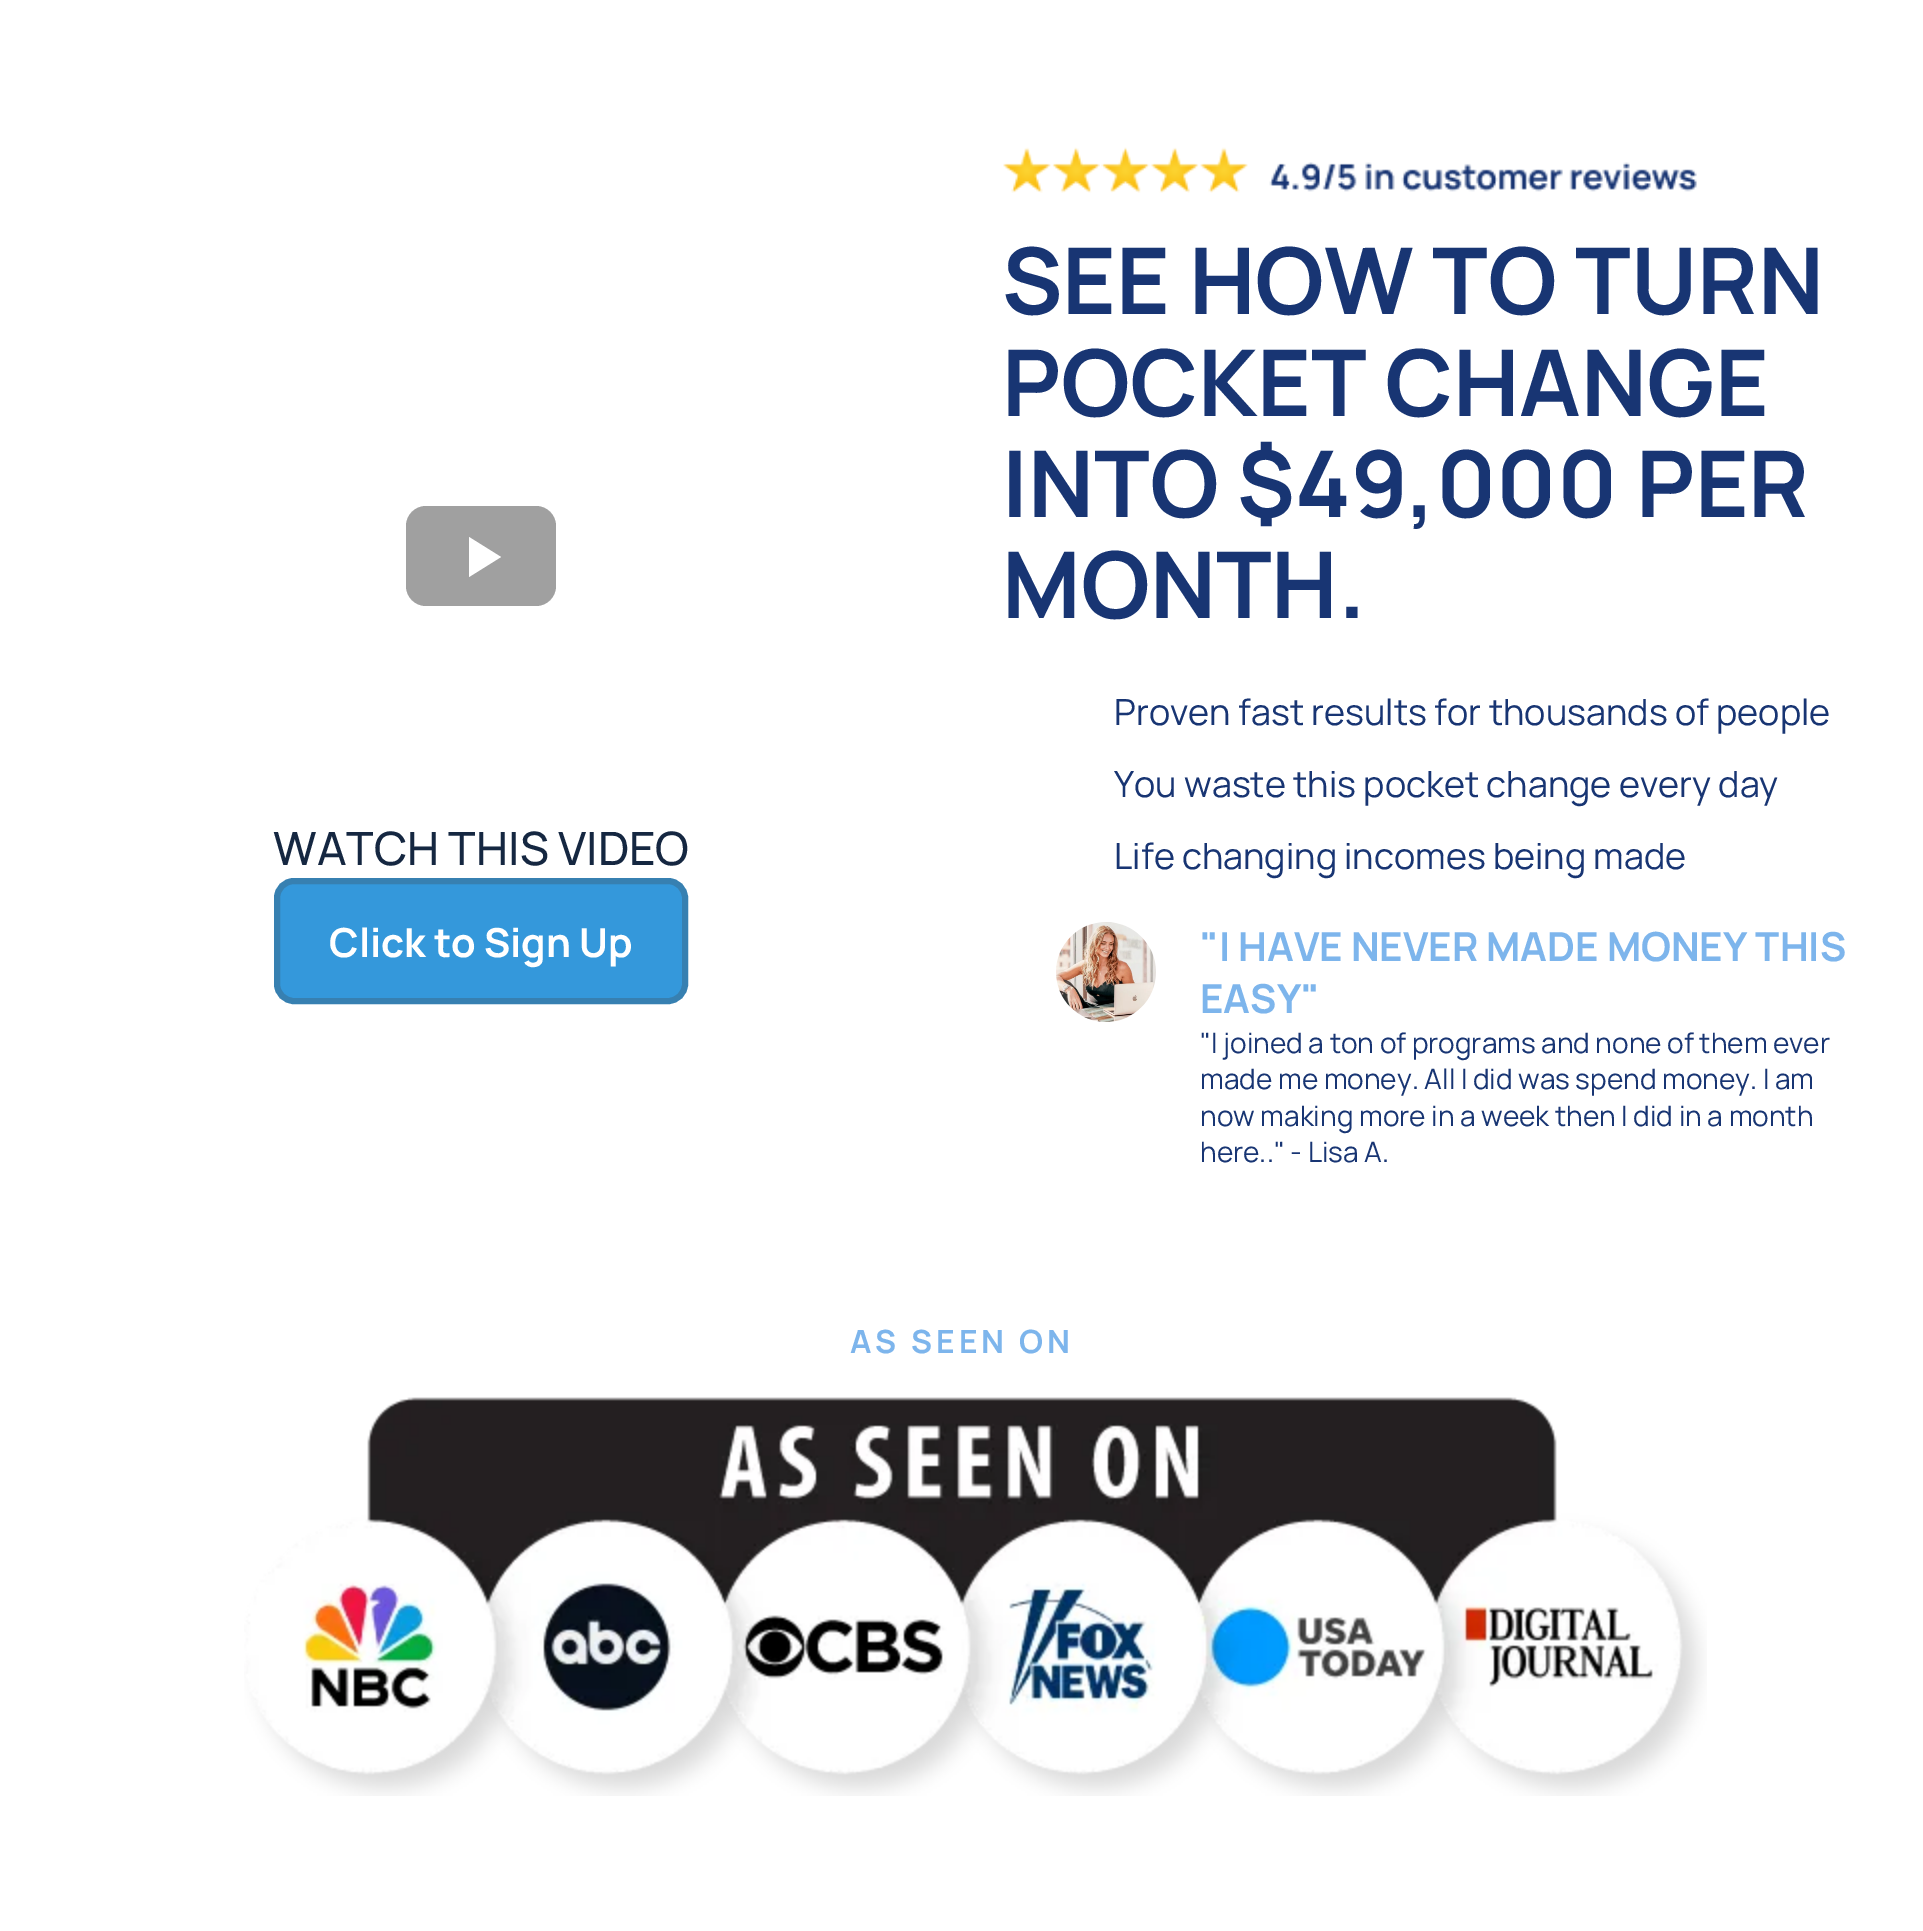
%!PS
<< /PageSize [1923 1931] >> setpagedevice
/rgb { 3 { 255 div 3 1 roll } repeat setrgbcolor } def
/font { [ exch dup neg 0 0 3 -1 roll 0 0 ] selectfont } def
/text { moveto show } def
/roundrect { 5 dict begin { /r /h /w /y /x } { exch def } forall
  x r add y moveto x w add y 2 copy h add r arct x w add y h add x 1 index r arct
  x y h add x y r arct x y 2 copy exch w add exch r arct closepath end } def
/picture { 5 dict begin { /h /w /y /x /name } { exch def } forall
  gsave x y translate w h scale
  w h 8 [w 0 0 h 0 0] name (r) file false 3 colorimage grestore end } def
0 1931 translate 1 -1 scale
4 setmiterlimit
255 255 255 rgb
0 0 1923 1931 rectfill
160 160 160 rgb
406 506 150 100 20 roundrect fill
255 255 255 rgb
469 537 moveto 0 40 rlineto 32 -20 rlineto closepath fill
52 152 219 rgb
277 881 408 120 17 roundrect gsave fill grestore
55 128 177 rgb
6 setlinewidth
stroke
(img_01.rgb) 1003 147 694 46 picture
(img_02.rgb) 1056 922 100 100 picture
(img_03.rgb) 244 1397 1463 399 picture
/Manrope-Medium 46 font
21 39 65 rgb
(WATCH THIS VIDEO) 273 865 text
/Manrope-Bold 40 font
255 255 255 rgb
(Click to Sign Up) 329 957 text
/Manrope-Bold 92 font
24 53 115 rgb
(SEE HOW TO TURN) 1002 314 text
(POCKET CHANGE) 1002 416 text
(INTO $49,000 PER) 1002 517 text
(MONTH.) 1002 618 text
/Manrope-Regular 36 font
(Proven fast results for thousands of people) 1114 725 text
(You waste this pocket change every day) 1114 797 text
(Life changing incomes being made) 1114 869 text
/Manrope-Bold 40 font
125 181 236 rgb
("I HAVE NEVER MADE MONEY THIS) 1200 961 text
(EASY") 1200 1013 text
/Manrope-Regular 28 font
24 53 115 rgb
("I joined a ton of programs and none of them ever) 1200 1053 text
(made me money. All I did was spend money. I am) 1200 1089 text
(now making more in a week then I did in a month) 1200 1126 text
(here.." - Lisa A.) 1200 1162 text
/Manrope-Bold 32 font
125 181 236 rgb
850 1353 moveto 4 0 (AS SEEN ON) ashow
showpage
